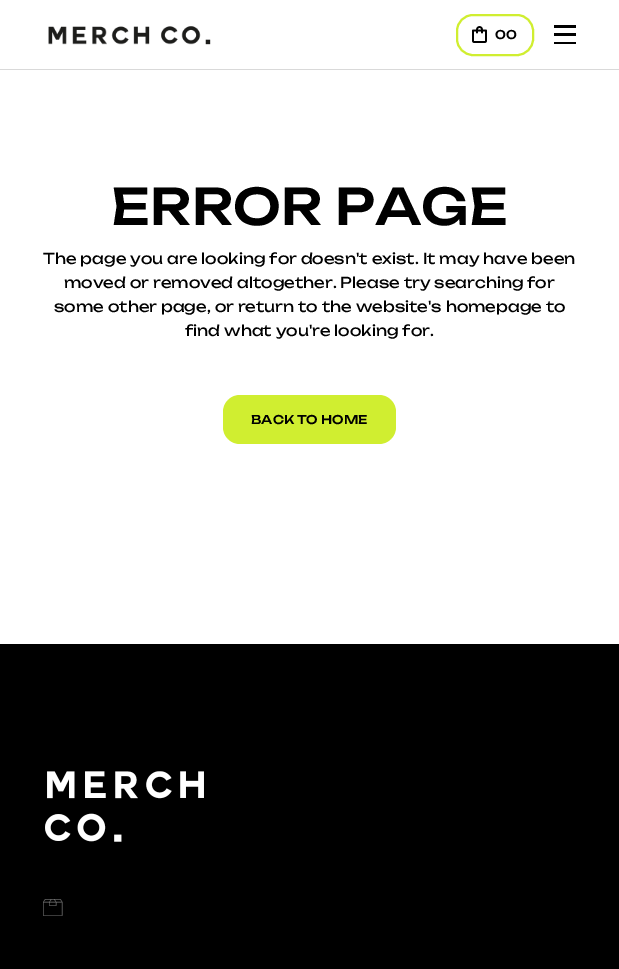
%!PS
<< /PageSize [619 969] >> setpagedevice
/rgb { 3 { 255 div 3 1 roll } repeat setrgbcolor } def
/font { [ exch dup neg 0 0 3 -1 roll 0 0 ] selectfont } def
/text { moveto show } def
/roundrect { 5 dict begin { /r /h /w /y /x } { exch def } forall
  x r add y moveto x w add y 2 copy h add r arct x w add y h add x 1 index r arct
  x y h add x y r arct x y 2 copy exch w add exch r arct closepath end } def
/picture { 5 dict begin { /h /w /y /x /name } { exch def } forall
  gsave x y translate w h scale
  w h 8 [w 0 0 h 0 0] name (r) file false 3 colorimage grestore end } def
0 969 translate 1 -1 scale
4 setmiterlimit
255 255 255 rgb
0 0 619 969 rectfill
217 217 217 rgb
0 69 619 1 rectfill
(img_01.rgb) 48 26 163 19 picture
208 238 48 rgb
2 setlinewidth
457 15 76 40 16 roundrect stroke
(img_02.rgb) 472 26 15 17 picture
0 0 0 rgb
554 42 22 2 rectfill
554 33 22 3 rectfill
554 25 22 3 rectfill
208 238 48 rgb
223 395 173 49 17 roundrect fill
0 0 0 rgb
0 644 619 325 rectfill
(img_03.rgb) 45 771 159 71 picture
(img_04.rgb) 43 899 20 17 picture
/Unbounded-Medium 12 font
(00) 495 39 text
/Unbounded-Medium 50 font
(ERROR PAGE) 111 225 text
/Unbounded-Regular 15 font
(The page you are looking for doesn't exist. It may have been) 43 264 text
(moved or removed altogether. Please try searching for) 64 288 text
(some other page, or return to the website's homepage to) 54 312 text
(find what you're looking for.) 185 336 text
/Unbounded-Medium 12 font
(BACK TO HOME) 251 424 text
showpage
